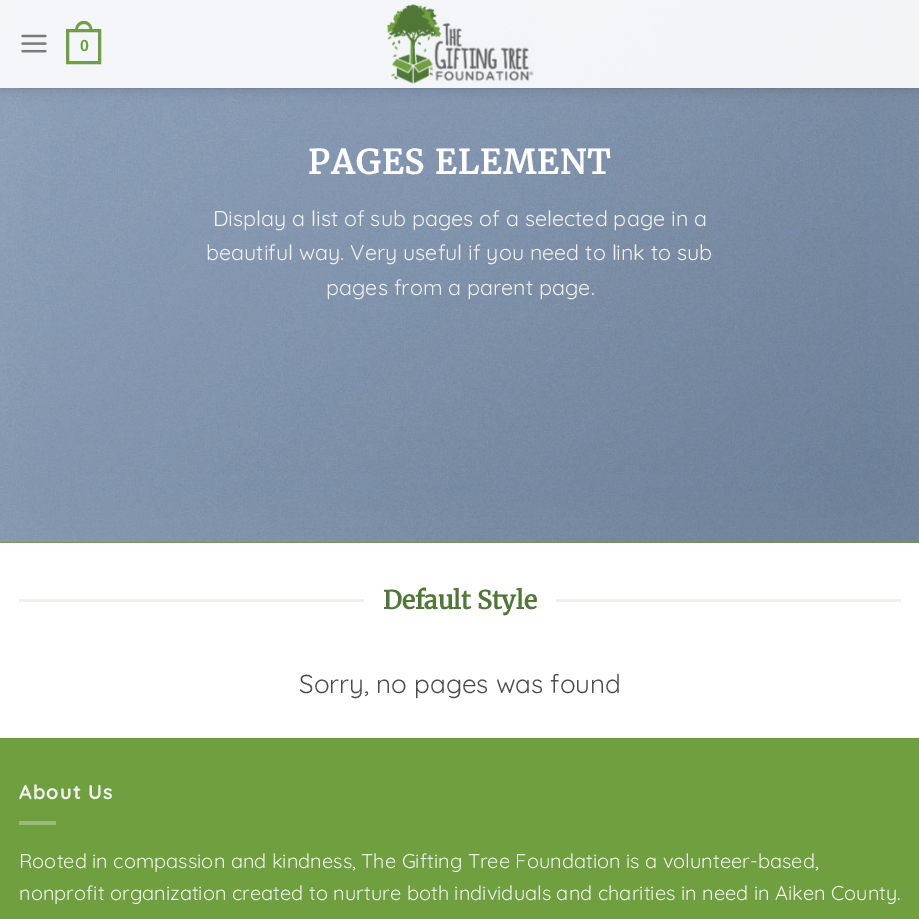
%!PS
<< /PageSize [919 919] /PageUsesTransparency true >> setpagedevice
/rgb { 3 { 255 div 3 1 roll } repeat setrgbcolor } def
/font { [ exch dup neg 0 0 3 -1 roll 0 0 ] selectfont } def
/text { moveto show } def
/alpha { dup .setfillconstantalpha .setstrokeconstantalpha } def
/roundrect { 5 dict begin { /r /h /w /y /x } { exch def } forall
  x r add y moveto x w add y 2 copy h add r arct x w add y h add x 1 index r arct
  x y h add x y r arct x y 2 copy exch w add exch r arct closepath end } def
/shadow { 12 dict begin { /a /b /q /h /w /y /x } { exch def } forall gsave /was 0 def
  9 -2 -9 { dup b mul 4 div /e exch def 1 sub .425 mul 2.718 exch exp 1 add a .99 .min exch div /now exch def
    1 1 now sub 1 was sub div sub alpha /was now def
    w h .min e 2 mul add 0 gt { x e sub y e sub w e 2 mul add h e 2 mul add
      q e add b .6 mul add w h .min 2 div e add .min 0 .max roundrect fill } if } for grestore end } def
/picture { 5 dict begin { /h /w /y /x /name } { exch def } forall
  gsave x y translate w h scale
  w h 8 [w 0 0 h 0 0] name (r) file false 3 colorimage grestore end } def
0 .pushpdf14devicefilter
0 919 translate 1 -1 scale
4 setmiterlimit
255 255 255 rgb
0 0 919 919 rectfill
105 149 60 rgb
0 542 919 1 rectfill
(img_03.rgb) 0 0 919 543 picture
gsave
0 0 moveto 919 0 rlineto 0 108 rlineto -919 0 rlineto closepath 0 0 moveto 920 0 rlineto 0 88 rlineto -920 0 rlineto closepath eoclip newpath
0 0 0 rgb
1 1 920 88 0 6 0.15 shadow
grestore
0.9 alpha
255 255 255 rgb
0 0 919 88 rectfill
1 alpha
(img_01.rgb) 21 34 26 19 picture
112 159 64 rgb
3 setlinewidth
67.5 30.5 32 32 rectstroke
84 21 moveto 5.5 0 8.5 5 8.5 10 rcurveto -17.5 0 rlineto 0 -5 3 -10 9 -10 rcurveto closepath 84 24 moveto 4 0 6 3.5 6 7 rcurveto -12.5 0 rlineto 0 -3.5 2 -7 6.5 -7 rcurveto closepath eofill
(img_02.rgb) 387 4 147 80 picture
0.1 alpha
76 76 76 rgb
19 88 882 1 rectfill
1 alpha
238 241 235 rgb
19 599 345 3 rectfill
556 599 345 3 rectfill
112 159 64 rgb
0 739 919 180 rectfill
106 151 61 rgb
0 738 919 1 rectfill
155 188 121 rgb
19 821 37 4 rectfill
/LiberationSans-Bold 16 font
112 159 64 rgb
(0) 80 51 text
/Merriweather-Bold 33.1 font
255 255 255 rgb
308 174 moveto 1.7 0 (PAGES ELEMENT) ashow
/Quicksand-Regular 21.5 font
241 241 241 rgb
(Display a list of sub pages of a selected page in a) 213 226 text
(beautiful way. Very useful if you need to link to sub) 206 260 text
(pages from a parent page.) 326 295 text
/Merriweather-Bold 25 font
80 119 55 rgb
(Default Style) 383 609 text
/Quicksand-Regular 26 font
76 76 76 rgb
(Sorry, no pages was found) 299 693 text
/Quicksand-Bold 20 font
241 241 241 rgb
19 799 moveto 1 0 (About Us) ashow
/Quicksand-Regular 20 font
(Rooted in compassion and kindness, The Gifting Tree Foundation is a volunteer-based,) 19 868 text
(nonprofit organization created to nurture both individuals and charities in need in Aiken County.) 19 900 text
.poppdf14devicefilter showpage
